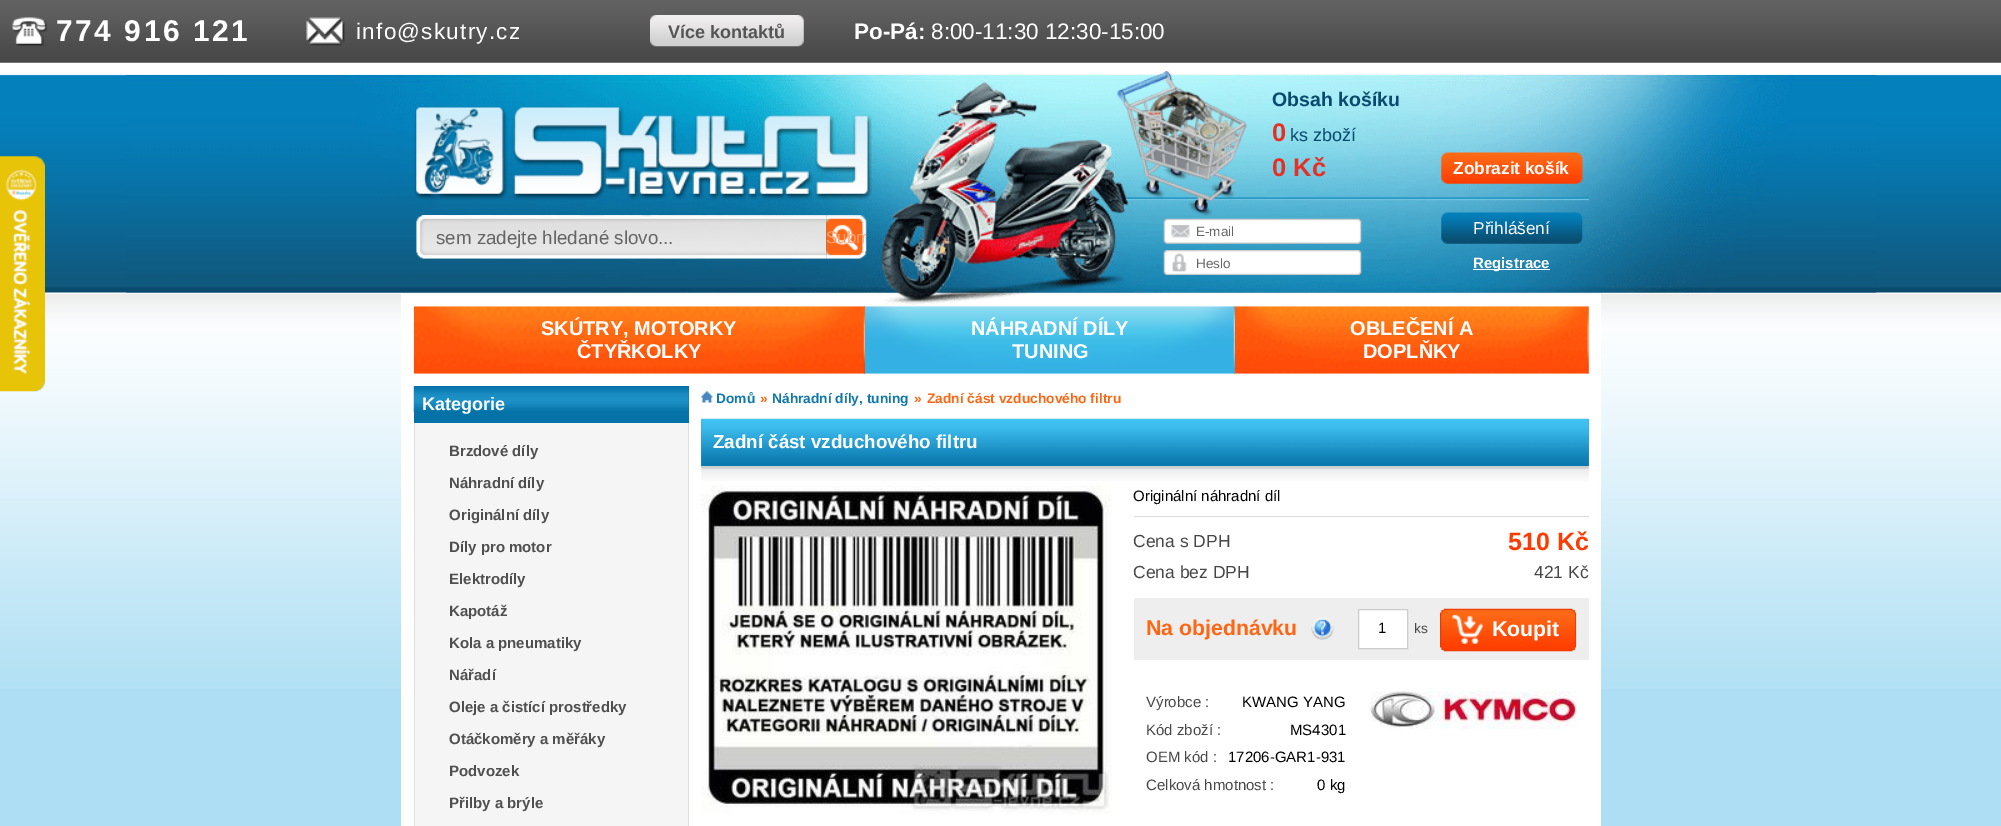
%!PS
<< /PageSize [2001 826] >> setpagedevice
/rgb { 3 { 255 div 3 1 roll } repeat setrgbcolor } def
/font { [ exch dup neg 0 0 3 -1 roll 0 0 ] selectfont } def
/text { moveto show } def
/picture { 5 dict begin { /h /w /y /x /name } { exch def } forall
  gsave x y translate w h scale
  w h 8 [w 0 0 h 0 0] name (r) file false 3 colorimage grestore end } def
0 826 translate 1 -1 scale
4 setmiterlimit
174 222 244 rgb
0 0 2001 826 rectfill
(img_01.rgb) 0 0 2001 689 picture
117 117 117 rgb
0 62 2001 1 rectfill
(img_02.rgb) 12 17 36 29 picture
(img_03.rgb) 306 17 39 29 picture
(img_04.rgb) 650 15 154 32 picture
(img_05.rgb) 0 156 45 236 picture
255 255 255 rgb
401 294 1200 532 rectfill
(img_06.rgb) 126 75 1751 230 picture
(img_07.rgb) 414 106 458 94 picture
(img_08.rgb) 416 215 411 44 picture
(img_09.rgb) 826 215 41 44 picture
(img_10.rgb) 1111 71 478 145 picture
(img_11.rgb) 1441 152 142 32 picture
(img_12.rgb) 1163 218 199 26 picture
(img_13.rgb) 1163 250 199 25 picture
(img_14.rgb) 1441 212 142 32 picture
1473 269 77 1 rectfill
(img_15.rgb) 413 306 452 68 picture
(img_16.rgb) 863 306 2 68 picture
(img_17.rgb) 865 306 370 68 picture
(img_18.rgb) 1233 306 2 68 picture
(img_19.rgb) 1235 306 354 68 picture
(img_20.rgb) 1587 306 2 68 picture
245 245 245 rgb
415 423 273 403 rectfill
5 115 168 rgb
414 386 275 37 rectfill
(img_21.rgb) 413 386 276 27 picture
223 223 223 rgb
688 423 1 403 rectfill
414 423 1 403 rectfill
(img_22.rgb) 701 391 12 12 picture
(img_23.rgb) 701 418 888 49 picture
(img_24.rgb) 701 466 888 15 picture
(img_25.rgb) 701 485 411 329 picture
219 218 218 rgb
1134 516 455 1 rectfill
238 238 238 rgb
1134 598 455 62 rectfill
(img_26.rgb) 1311 617 23 23 picture
255 255 255 rgb
1358.5 609.5 moveto 49 0 rlineto 0 39 rlineto -49 0 rlineto closepath gsave fill grestore
204 204 204 rgb
stroke
(img_27.rgb) 1440 608 137 44 picture
(img_28.rgb) 1370 691 207 38 picture
/LiberationSans-Bold 30 font
255 255 255 rgb
56 41 moveto 2.5 0 (774 916 121) ashow
/LiberationSans-Regular 22.5 font
356 39 moveto 1.25 0 (info@skutry.cz) ashow
/LiberationSans-Bold 18 font
86 85 85 rgb
(Více kontaktů) 668 38 text
/LiberationSans-Bold 22.5 font
255 255 255 rgb
(Po-Pá:) 854 39 text
/LiberationSans-Regular 22.5 font
(8:00-11:30 12:30-15:00) 931 39 text
/LiberationSans-Regular 18.75 font
102 102 102 rgb
(sem zadejte hledané slovo...) 436 244 text
gsave
826 215 40 44 rectclip
/LiberationSans-Regular 17 font
253 162 113 rgb
(Subm) 826 243 text
grestore
/LiberationSans-Bold 19.5 font
10 75 109 rgb
(Obsah košíku) 1272 106 text
/LiberationSans-Bold 25.5 font
230 48 37 rgb
(0) 1272 141 text
/LiberationSans-Regular 18 font
10 75 109 rgb
(ks zboží) 1290 141 text
/LiberationSans-Bold 25.5 font
230 48 37 rgb
(0 Kč) 1272 176 text
/LiberationSans-Bold 17.25 font
255 255 255 rgb
(Zobrazit košík) 1453 174 text
/LiberationSans-Regular 13.5 font
102 102 102 rgb
(E-mail) 1196 236 text
(Heslo) 1196 268 text
/LiberationSans-Regular 17.25 font
255 255 255 rgb
(Přihlášení) 1473 234 text
/LiberationSans-Bold 15 font
(Registrace) 1473 268 text
/LiberationSans-Bold 20 font
(SKÚTRY, MOTORKY) 541 335 text
(ČTYŘKOLKY) 577 358 text
(NÁHRADNÍ DÍLY) 971 335 text
(TUNING) 1012 358 text
(OBLEČENÍ A) 1350 335 text
(DOPLŇKY) 1363 358 text
/LiberationSans-Bold 18 font
(Kategorie) 422 410 text
/LiberationSans-Bold 15 font
79 79 79 rgb
(Brzdové díly) 449 456 text
(Náhradní díly) 449 488 text
(Originální díly) 449 520 text
(Díly pro motor) 449 552 text
(Elektrodíly) 449 584 text
(Kapotáž) 449 616 text
(Kola a pneumatiky) 449 648 text
(Nářadí) 449 680 text
(Oleje a čistící prostředky) 449 712 text
(Otáčkoměry a měřáky) 449 744 text
(Podvozek) 449 776 text
(Přilby a brýle) 449 808 text
/LiberationSans-Bold 13.75 font
16 120 172 rgb
(Domů) 716 403 text
255 102 20 rgb
(») 760 403 text
16 120 172 rgb
(Náhradní díly, tuning) 772 403 text
255 102 20 rgb
(») 914 403 text
(Zadní část vzduchového filtru) 927 403 text
/LiberationSans-Bold 18.75 font
255 255 255 rgb
(Zadní část vzduchového filtru) 713 448 text
/LiberationSans-Regular 15 font
0 0 0 rgb
(Originální náhradní díl) 1133 501 text
/LiberationSans-Regular 17.5 font
71 71 71 rgb
(Cena s DPH) 1133 547 text
/LiberationSans-Bold 25 font
254 60 1 rgb
(510 Kč) 1508 550 text
/LiberationSans-Regular 17.5 font
71 71 71 rgb
(Cena bez DPH) 1133 578 text
(421 Kč) 1534 578 text
/LiberationSans-Bold 21.25 font
255 102 20 rgb
(Na objednávku) 1146 635 text
/LiberationSans-Regular 15 font
0 0 0 rgb
(1) 1378 633 text
/LiberationSans-Regular 13.75 font
71 71 71 rgb
(ks) 1414 633 text
/LiberationSans-Bold 21.25 font
255 255 255 rgb
(Koupit) 1492 636 text
/LiberationSans-Regular 15 font
71 71 71 rgb
(Výrobce :) 1146 707 text
0 0 0 rgb
(KWANG YANG) 1242 707 text
71 71 71 rgb
(Kód zboží :) 1146 735 text
0 0 0 rgb
(MS4301) 1290 735 text
71 71 71 rgb
(OEM kód :) 1146 762 text
0 0 0 rgb
(17206-GAR1-931) 1228 762 text
71 71 71 rgb
(Celková hmotnost :) 1146 790 text
0 0 0 rgb
(0 kg) 1317 790 text
showpage
